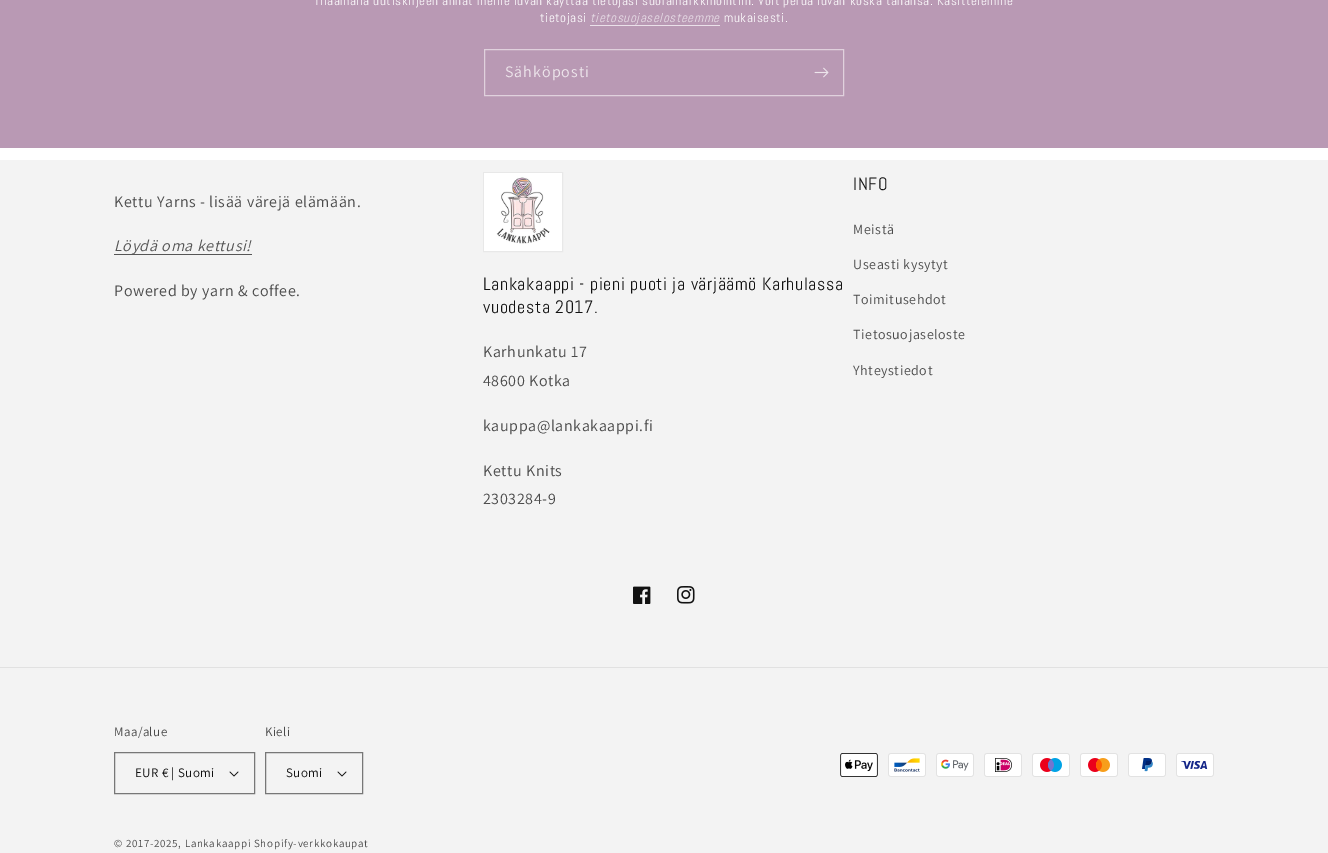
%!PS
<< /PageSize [1328 853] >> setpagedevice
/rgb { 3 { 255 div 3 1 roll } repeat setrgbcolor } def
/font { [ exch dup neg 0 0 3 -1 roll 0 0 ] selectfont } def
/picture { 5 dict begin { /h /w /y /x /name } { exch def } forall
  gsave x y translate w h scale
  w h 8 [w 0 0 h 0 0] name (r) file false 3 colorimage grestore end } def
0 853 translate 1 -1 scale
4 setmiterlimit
255 255 255 rgb
0 0 1328 853 rectfill
185 153 180 rgb
0 0 1328 148 rectfill
234 224 233 rgb
590 25 130 1 rectfill
224 209 221 rgb
484.5 49.5 359 46 rectstroke
(img_01.rgb) 814 67 15 11 picture
243 243 243 rgb
0 160 1328 693 rectfill
86 86 86 rgb
114 254 138 1 rectfill
232 232 232 rgb
483.5 172.5 79 79 rectstroke
(img_02.rgb) 484 173 78 78 picture
(img_03.rgb) 633 586 18 18 picture
(img_04.rgb) 677 586 18 18 picture
225 225 225 rgb
0 667 1328 1 rectfill
(img_05.rgb) 229 771 10 6 picture
119 119 119 rgb
114.5 752.5 140 41 rectstroke
(img_05.rgb) 337 771 10 6 picture
265.5 752.5 97 41 rectstroke
(img_06.rgb) 840 753 38 24 picture
(img_07.rgb) 888 753 38 24 picture
(img_08.rgb) 936 753 38 24 picture
(img_09.rgb) 984 753 38 24 picture
(img_10.rgb) 1032 753 38 24 picture
(img_11.rgb) 1080 753 38 24 picture
(img_12.rgb) 1128 753 38 24 picture
(img_13.rgb) 1176 753 38 24 picture
/Abel-Regular 13 font
255 255 255 rgb
314 5 moveto 0.6 0 (Tilaamalla uutiskirjeen annat meille luvan käyttää tietojasi suoramarkkinointiin. Voit perua luvan koska tahansa. Käsittelemme) ashow
540 22 moveto 0.6 0 (tietojasi) ashow
/Abel-Italic 13 font
234 224 233 rgb
590 22 moveto 0.6 0 (tietosuojaselosteemme) ashow
/Abel-Regular 13 font
255 255 255 rgb
724 22 moveto 0.6 0 (mukaisesti.) ashow
/Assistant-Regular 16 font
238 230 236 rgb
505 77 moveto 1 0 (Sähköposti) ashow
74 74 74 rgb
114 207 moveto 0.6 0 (Kettu Yarns - lisää värejä elämään.) ashow
/Assistant-Italic 16 font
85 85 85 rgb
114 251 moveto 0.6 0 (Löydä oma kettusi!) ashow
/Assistant-Regular 16 font
74 74 74 rgb
114 296 moveto 0.6 0 (Powered by yarn & coffee.) ashow
/Abel-Regular 18 font
18 18 18 rgb
853 190 moveto 0.6 0 (INFO) ashow
/Assistant-Regular 14 font
74 74 74 rgb
853 234 moveto 0.6 0 (Meistä) ashow
853 269 moveto 0.6 0 (Useasti kysytyt) ashow
853 304 moveto 0.6 0 (Toimitusehdot) ashow
853 339 moveto 0.6 0 (Tietosuojaseloste) ashow
853 375 moveto 0.6 0 (Yhteystiedot) ashow
/Abel-Regular 18 font
18 18 18 rgb
483 290 moveto 0.6 0 (Lankakaappi - pieni puoti ja värjäämö Karhulassa) ashow
483 313 moveto 0.6 0 (vuodesta 2017.) ashow
/Assistant-Regular 16 font
74 74 74 rgb
483 357 moveto 0.6 0 (Karhunkatu 17) ashow
483 386 moveto 0.6 0 (48600 Kotka) ashow
483 431 moveto 0.6 0 (kauppa@lankakaappi.fi) ashow
483 476 moveto 0.6 0 (Kettu Knits) ashow
483 504 moveto 0.6 0 (2303284-9) ashow
/Assistant-Regular 13 font
114 736 moveto 0.4 0 (Maa/alue) ashow
18 18 18 rgb
135 777 moveto 0.4 0 (EUR € | Suomi) ashow
74 74 74 rgb
265 736 moveto 0.4 0 (Kieli) ashow
18 18 18 rgb
286 777 moveto 0.4 0 (Suomi) ashow
/Assistant-Regular 11 font
74 74 74 rgb
114 847 moveto 0.7 0 (© 2017-2025, Lankakaappi Shopify-verkkokaupat) ashow
showpage
